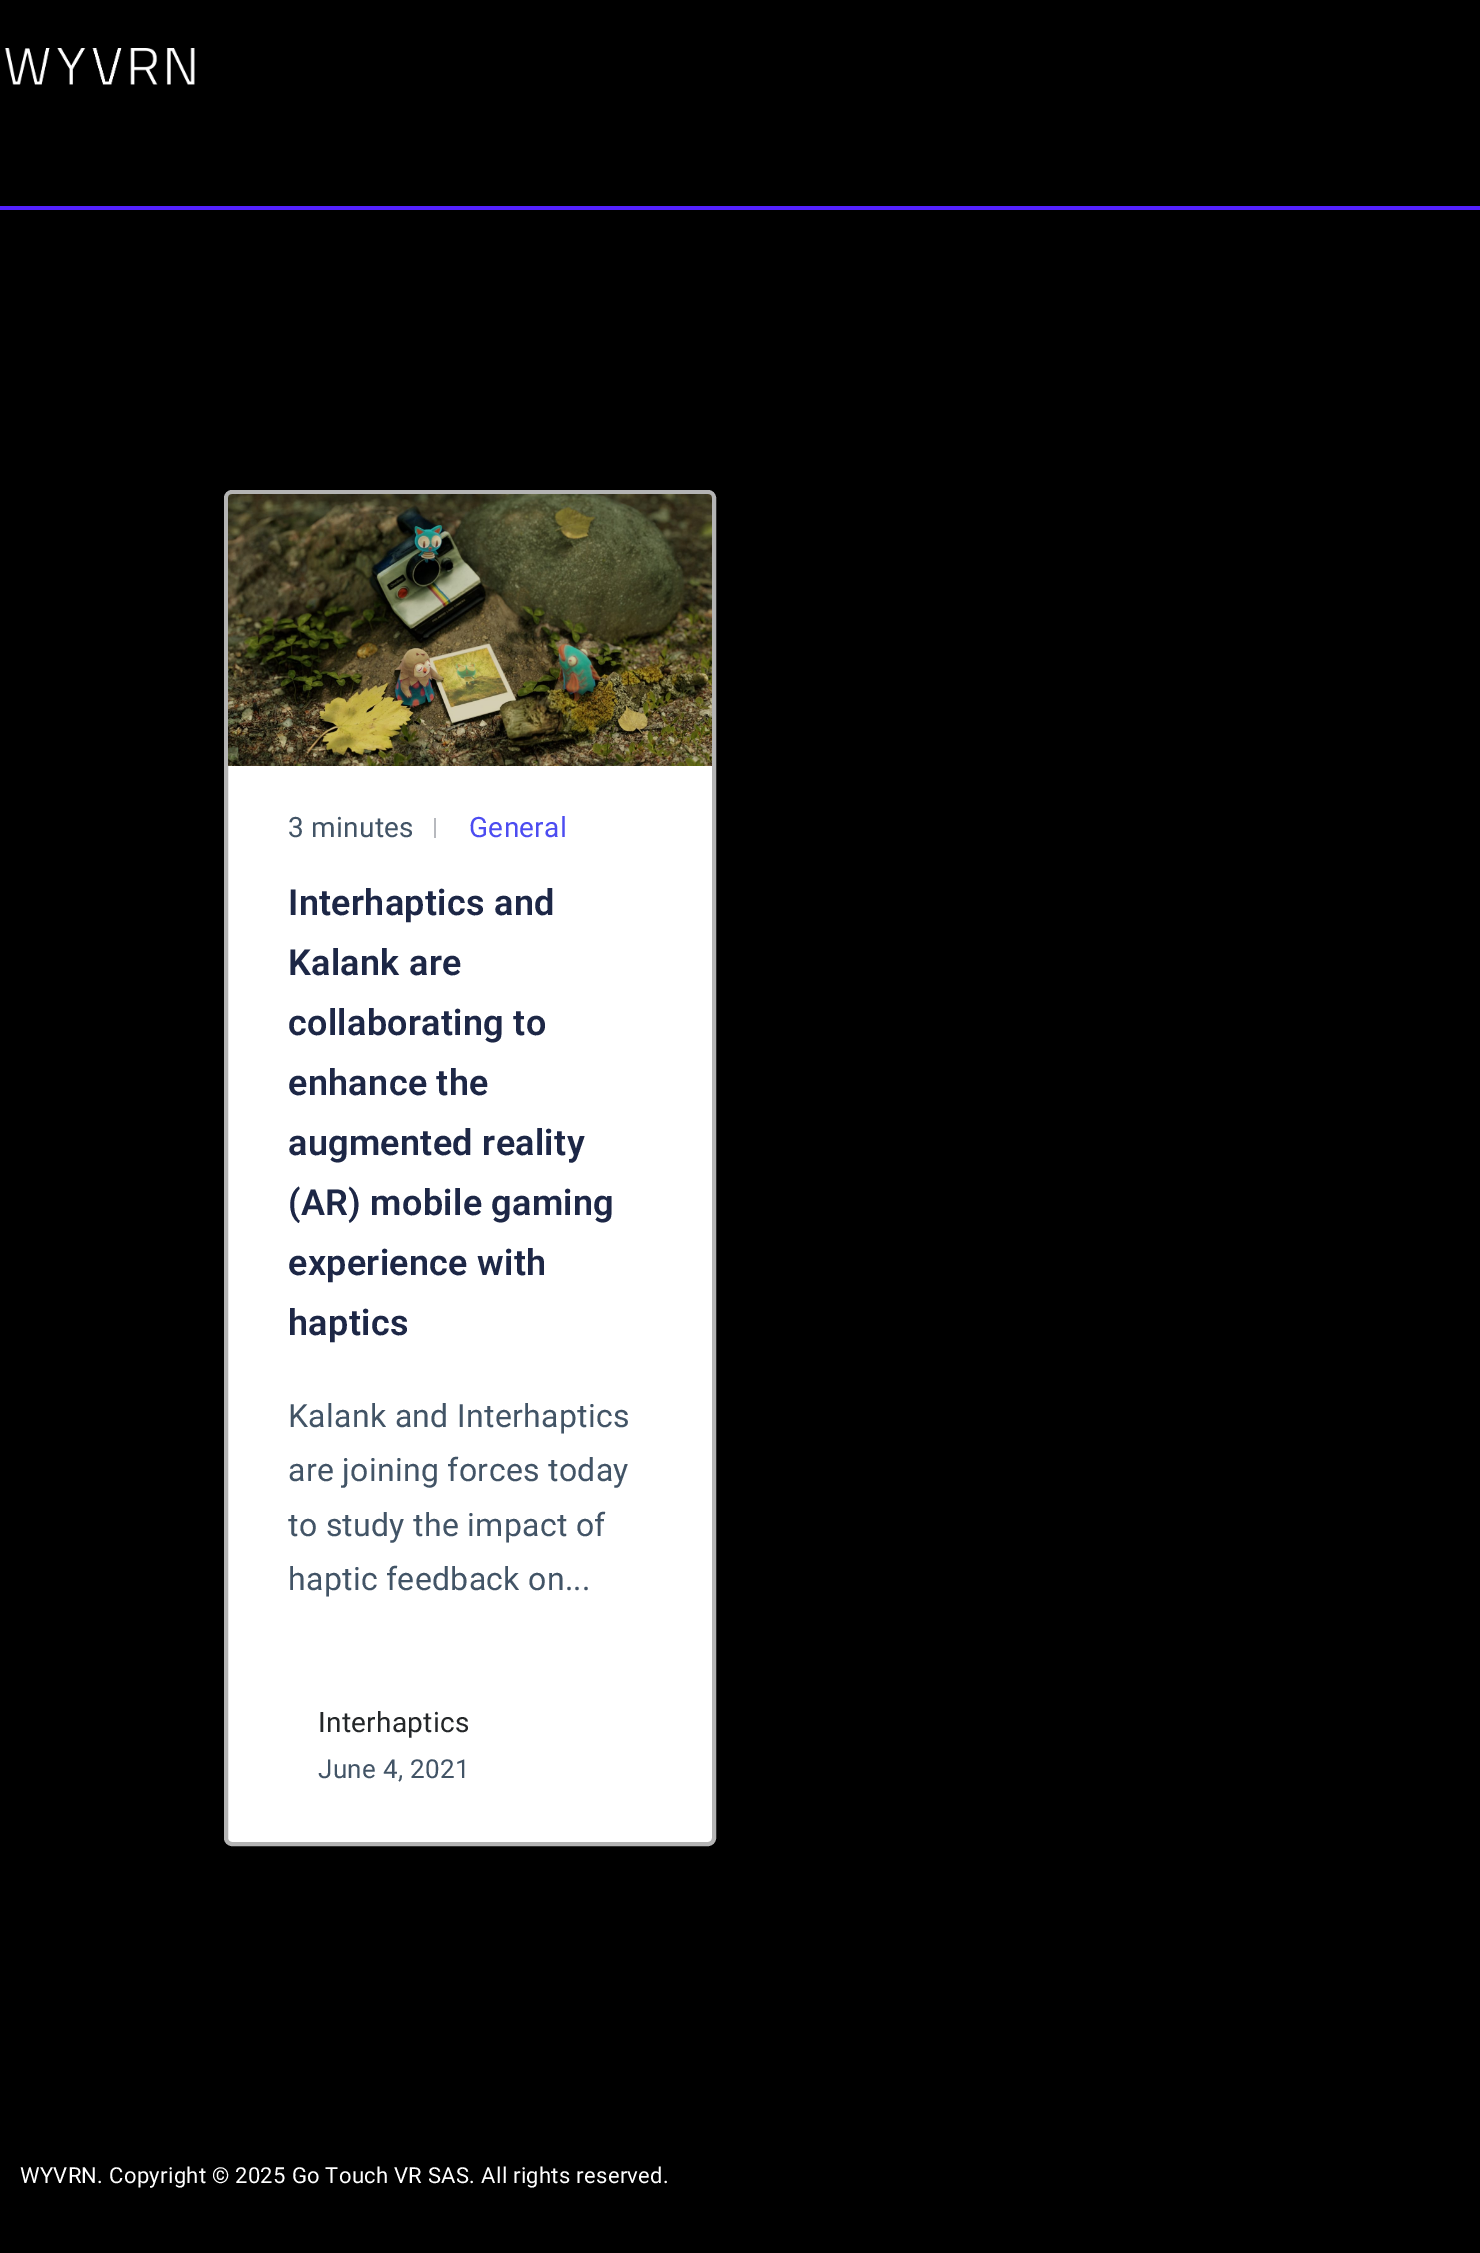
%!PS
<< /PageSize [1480 2253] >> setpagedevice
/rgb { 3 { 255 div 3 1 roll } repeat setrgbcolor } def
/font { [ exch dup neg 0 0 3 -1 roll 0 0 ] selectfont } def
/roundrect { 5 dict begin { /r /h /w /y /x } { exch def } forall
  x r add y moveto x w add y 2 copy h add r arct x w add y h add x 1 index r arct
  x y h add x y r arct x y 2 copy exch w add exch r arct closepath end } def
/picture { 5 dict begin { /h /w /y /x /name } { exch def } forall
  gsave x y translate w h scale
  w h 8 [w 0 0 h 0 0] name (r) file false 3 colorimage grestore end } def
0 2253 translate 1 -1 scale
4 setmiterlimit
0 0 0 rgb
0 0 1480 2253 rectfill
84 34 255 rgb
0 206 1480 4 rectfill
(img_01.rgb) 4 48 191 37 picture
255 255 255 rgb
226 492 488 1352 6 roundrect gsave fill grestore
180 180 180 rgb
4 setlinewidth
stroke
(img_02.rgb) 228 494 484 272 picture
183 185 190 rgb
434 818 2 20 rectfill
/Roboto-Regular 28 font
66 84 102 rgb
288 837 moveto 0.3 0 (3 minutes) ashow
76 76 241 rgb
469 837 moveto 0.3 0 (General) ashow
/Roboto-SemiBold 36 font
29 39 70 rgb
288 915 moveto 0.3 0 (Interhaptics and) ashow
288 975 moveto 0.3 0 (Kalank are) ashow
288 1035 moveto 0.3 0 (collaborating to) ashow
288 1095 moveto 0.3 0 (enhance the) ashow
288 1155 moveto 0.3 0 (augmented reality) ashow
288 1215 moveto 0.3 0 (\(AR\) mobile gaming) ashow
288 1275 moveto 0.3 0 (experience with) ashow
288 1335 moveto 0.3 0 (haptics) ashow
/Roboto-Regular 32 font
66 84 102 rgb
288 1427 moveto 0.3 0 (Kalank and Interhaptics) ashow
288 1481 moveto 0.3 0 (are joining forces today) ashow
288 1536 moveto 0.3 0 (to study the impact of) ashow
288 1590 moveto 0.3 0 (haptic feedback on...) ashow
/Roboto-Regular 28 font
36 39 41 rgb
318 1732 moveto 0.3 0 (Interhaptics) ashow
/Roboto-Regular 26 font
66 84 102 rgb
318 1778 moveto 0.3 0 (June 4, 2021) ashow
/Roboto-Regular 22 font
255 255 255 rgb
20 2183 moveto 0.3 0 (WYVRN. Copyright © 2025 Go Touch VR SAS. All rights reserved.) ashow
showpage
